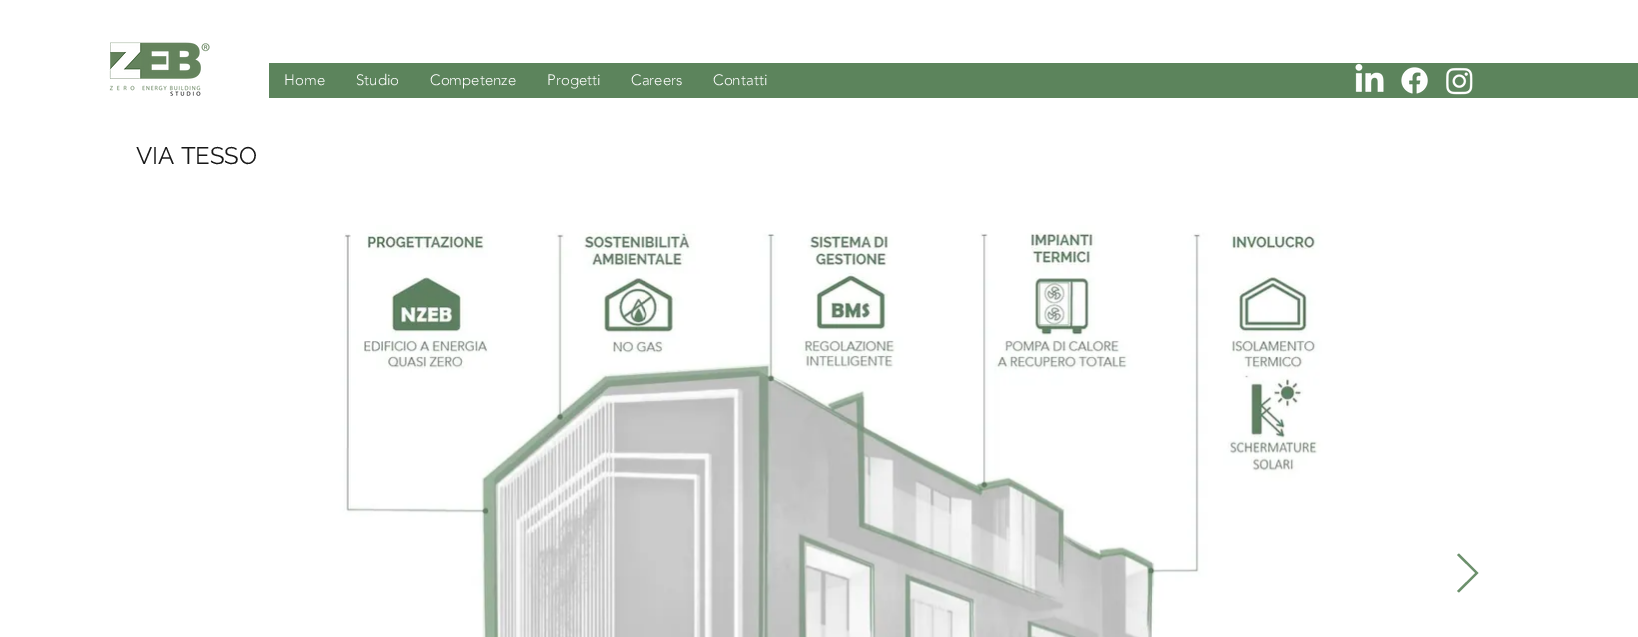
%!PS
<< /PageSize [1638 637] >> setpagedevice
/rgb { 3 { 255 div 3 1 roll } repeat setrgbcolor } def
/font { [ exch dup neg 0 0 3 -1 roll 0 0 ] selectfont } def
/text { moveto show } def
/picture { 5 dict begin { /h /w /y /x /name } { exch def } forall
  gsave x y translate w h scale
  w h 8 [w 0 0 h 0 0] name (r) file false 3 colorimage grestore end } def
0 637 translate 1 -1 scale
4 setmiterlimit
255 255 255 rgb
0 0 1638 637 rectfill
(img_01.rgb) 109 42 101 54 picture
92 132 92 rgb
269 63 1369 35 rectfill
(img_02.rgb) 1355 63 29 29 picture
(img_03.rgb) 1401 67 27 27 picture
(img_04.rgb) 1446 67 27 28 picture
(img_05.rgb) 136 193 1357 444 picture
108 144 108 rgb
1457 555 moveto 2 -1.5 rlineto 19.5 19.5 rlineto -19.5 19.5 rlineto -2 -1.5 rlineto 18.5 -18 rlineto closepath fill
/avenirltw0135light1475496-Light 15 font
255 255 255 rgb
(Home) 284 85 text
(Studio) 356 85 text
(Competenze) 430 85 text
(Progetti) 547 85 text
(Careers) 631 85 text
(Contatti) 713 85 text
/Raleway-Regular 24 font
24 24 24 rgb
(VIA TESSO) 136 164 text
showpage
